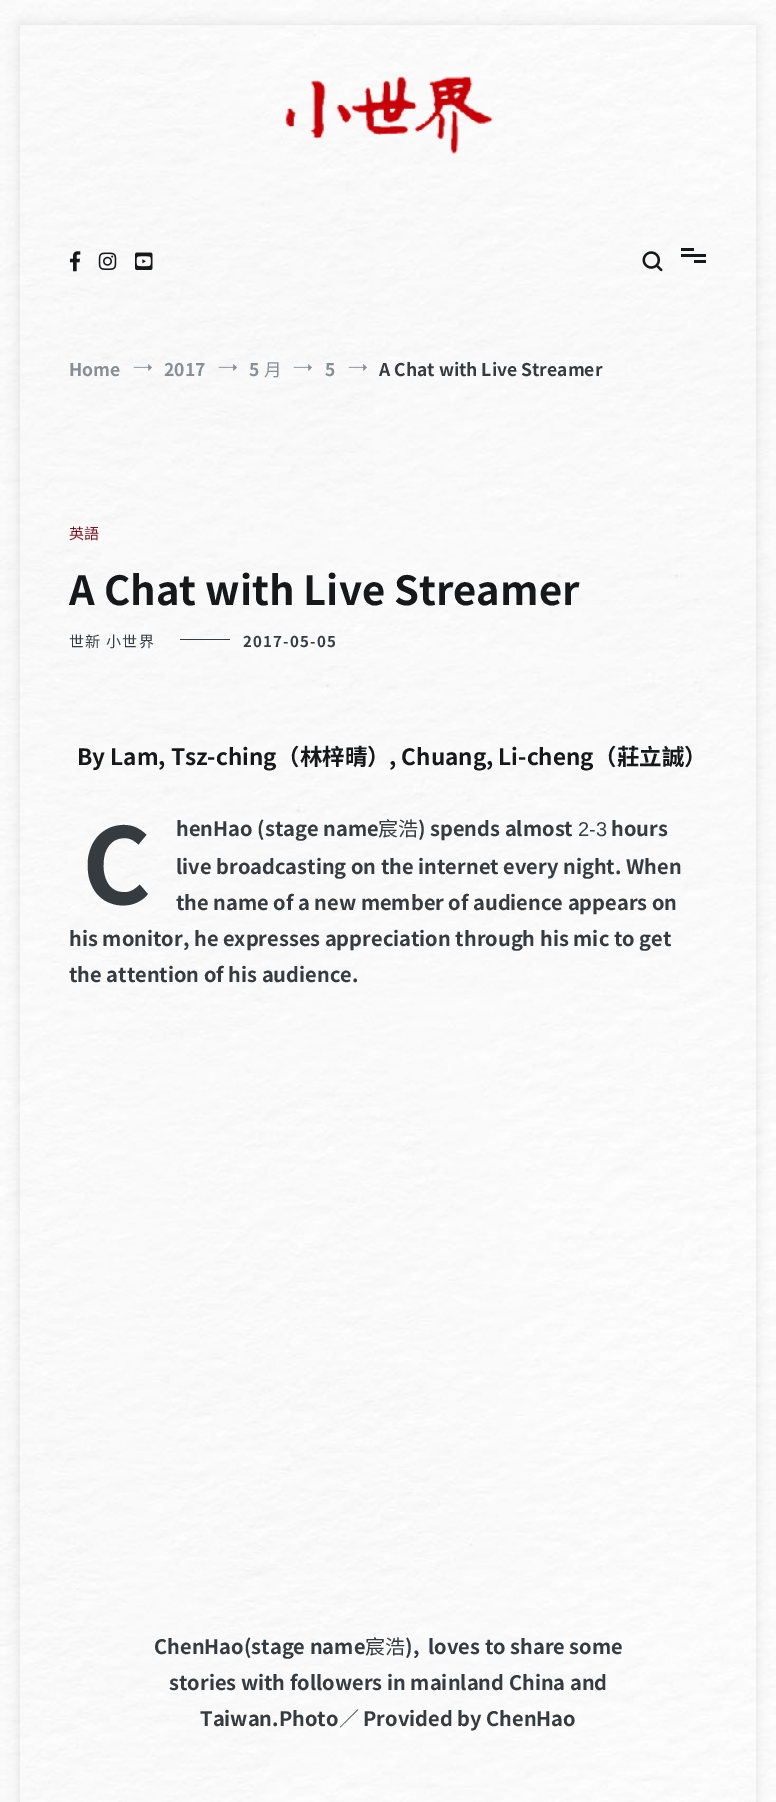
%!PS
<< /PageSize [776 1802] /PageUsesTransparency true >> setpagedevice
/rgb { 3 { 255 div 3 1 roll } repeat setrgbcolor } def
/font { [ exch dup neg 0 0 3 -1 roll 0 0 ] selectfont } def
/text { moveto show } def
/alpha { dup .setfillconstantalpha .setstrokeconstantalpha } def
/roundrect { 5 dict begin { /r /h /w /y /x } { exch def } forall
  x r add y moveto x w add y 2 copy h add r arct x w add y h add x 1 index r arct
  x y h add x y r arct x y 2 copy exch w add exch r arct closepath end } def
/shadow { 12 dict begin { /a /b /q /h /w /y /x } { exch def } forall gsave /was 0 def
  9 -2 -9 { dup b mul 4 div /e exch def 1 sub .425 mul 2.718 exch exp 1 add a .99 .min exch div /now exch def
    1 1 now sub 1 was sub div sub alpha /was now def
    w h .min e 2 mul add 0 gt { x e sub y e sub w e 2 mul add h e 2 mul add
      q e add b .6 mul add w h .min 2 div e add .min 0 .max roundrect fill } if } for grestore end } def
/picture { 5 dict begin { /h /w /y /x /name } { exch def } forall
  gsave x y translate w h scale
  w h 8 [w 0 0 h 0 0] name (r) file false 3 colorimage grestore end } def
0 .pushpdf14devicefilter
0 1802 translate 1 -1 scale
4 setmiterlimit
255 255 255 rgb
0 0 776 1802 rectfill
(img_01.rgb) 0 0 776 1802 picture
gsave
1 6 moveto 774 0 rlineto 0 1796 rlineto -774 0 rlineto closepath 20 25 moveto 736 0 rlineto 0 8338 rlineto -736 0 rlineto closepath eoclip newpath
0 0 0 rgb
20 25 736 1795 0 6 0.1 shadow
grestore
(img_02.rgb) 285 76 208 78 picture
(img_03.rgb) 70 251 11 21 picture
(img_04.rgb) 98 252 19 18 picture
(img_05.rgb) 135 252 18 18 picture
(img_06.rgb) 642 251 21 21 picture
22 24 26 rgb
681 248 13 3 rectfill
681 254 25 3 rectfill
694 260 12 3 rectfill
(img_07.rgb) 133 364 19 7 picture
(img_08.rgb) 218 364 19 7 picture
(img_09.rgb) 293 364 19 7 picture
(img_10.rgb) 348 364 19 7 picture
54 59 64 rgb
180 639 50 1 rectfill
/NotoSansTC-Bold 17.5 font
134 142 150 rgb
(Home) 69 376 text
(2017) 164 376 text
(5) 249 376 text
/NotoSansCJKTC-Regular 17.5 font
(月) 264 376 text
/NotoSansTC-Bold 17.5 font
(5) 325 376 text
54 59 64 rgb
(A Chat with Live Streamer) 379 376 text
/NotoSansCJKTC-Regular 15 font
130 17 28 rgb
(英語) 69 539 text
/NotoSansTC-Bold 40 font
22 24 26 rgb
(A Chat with Live Streamer) 69 605 text
/NotoSansCJKTC-Regular 15 font
54 59 64 rgb
69 647 moveto 1.25 0 (世新 小世界) ashow
/NotoSansTC-Bold 15 font
243 647 moveto 1.25 0 (2017-05-05) ashow
/NotoSansTC-Bold 22.5 font
22 24 26 rgb
(By Lam, Tsz-ching) 77 765 text
/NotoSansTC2-Bold 22.5 font
(（林梓晴）) 277 765 text
/NotoSansTC-Bold 22.5 font
(, Chuang, Li-cheng) 389 765 text
/NotoSansTC2-Bold 22.5 font
(（莊立誠）) 594 765 text
/NotoSansTC-Bold 105 font
54 59 64 rgb
(C) 82 904 text
/NotoSansTC-Bold 20 font
(henHao \(stage name) 176 836 text
/NotoSansCJKTC-Regular 20 font
(宸浩) 378 836 text
/NotoSansTC-Bold 20 font
(\) spends almost) 418 836 text
/LiberationSans-Regular 20 font
(2-3) 578 836 text
/NotoSansTC-Bold 20 font
(hours) 611 836 text
(live broadcasting on the internet every night. When) 176 874 text
(the name of a new member of audience appears on) 176 910 text
(his monitor, he expresses appreciation through his mic to get) 69 946 text
(the attention of his audience.) 69 982 text
(ChenHao\(stage name) 154 1654 text
/NotoSansCJKTC-Regular 20 font
(宸浩) 365 1654 text
/NotoSansTC-Bold 20 font
(\),  loves to share some) 405 1654 text
(stories with followers in mainland China and) 169 1690 text
(Taiwan.Photo) 200 1726 text
/NotoSansCJKTC-Regular 20 font
(／) 339 1726 text
/NotoSansTC-Bold 20 font
(Provided by ChenHao) 363 1726 text
.poppdf14devicefilter showpage
